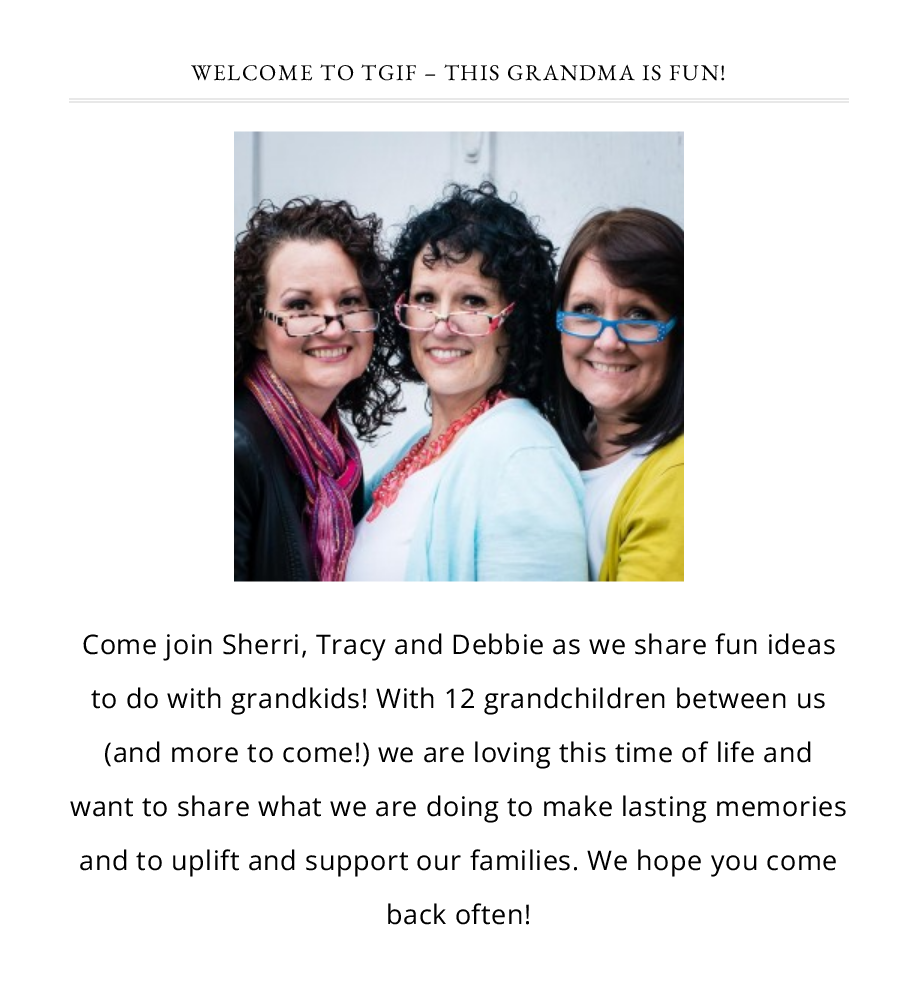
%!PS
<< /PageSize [917 982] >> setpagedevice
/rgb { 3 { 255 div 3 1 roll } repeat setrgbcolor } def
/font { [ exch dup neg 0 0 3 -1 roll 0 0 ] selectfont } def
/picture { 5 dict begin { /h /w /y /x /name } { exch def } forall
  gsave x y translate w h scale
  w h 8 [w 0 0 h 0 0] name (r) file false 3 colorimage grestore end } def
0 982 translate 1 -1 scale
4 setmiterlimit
255 255 255 rgb
0 0 917 982 rectfill
232 232 232 rgb
69 98 780 2 rectfill
69 101 780 2 rectfill
(img_01.rgb) 234 131 450 451 picture
/EBGaramond-Regular 22.5 font
0 0 0 rgb
191 80 moveto 1.5 0 (WELCOME TO TGIF – THIS GRANDMA IS FUN!) ashow
/OpenSans-Regular 27 font
82 654 moveto 0.6 0 (Come join Sherri, Tracy and Debbie as we share fun ideas) ashow
91 708 moveto 0.6 0 (to do with grandkids! With 12 grandchildren between us) ashow
104 762 moveto 0.6 0 (\(and more to come!\) we are loving this time of life and) ashow
70 816 moveto 0.6 0 (want to share what we are doing to make lasting memories) ashow
79 870 moveto 0.6 0 (and to uplift and support our families. We hope you come) ashow
386 924 moveto 0.6 0 (back often!) ashow
showpage
